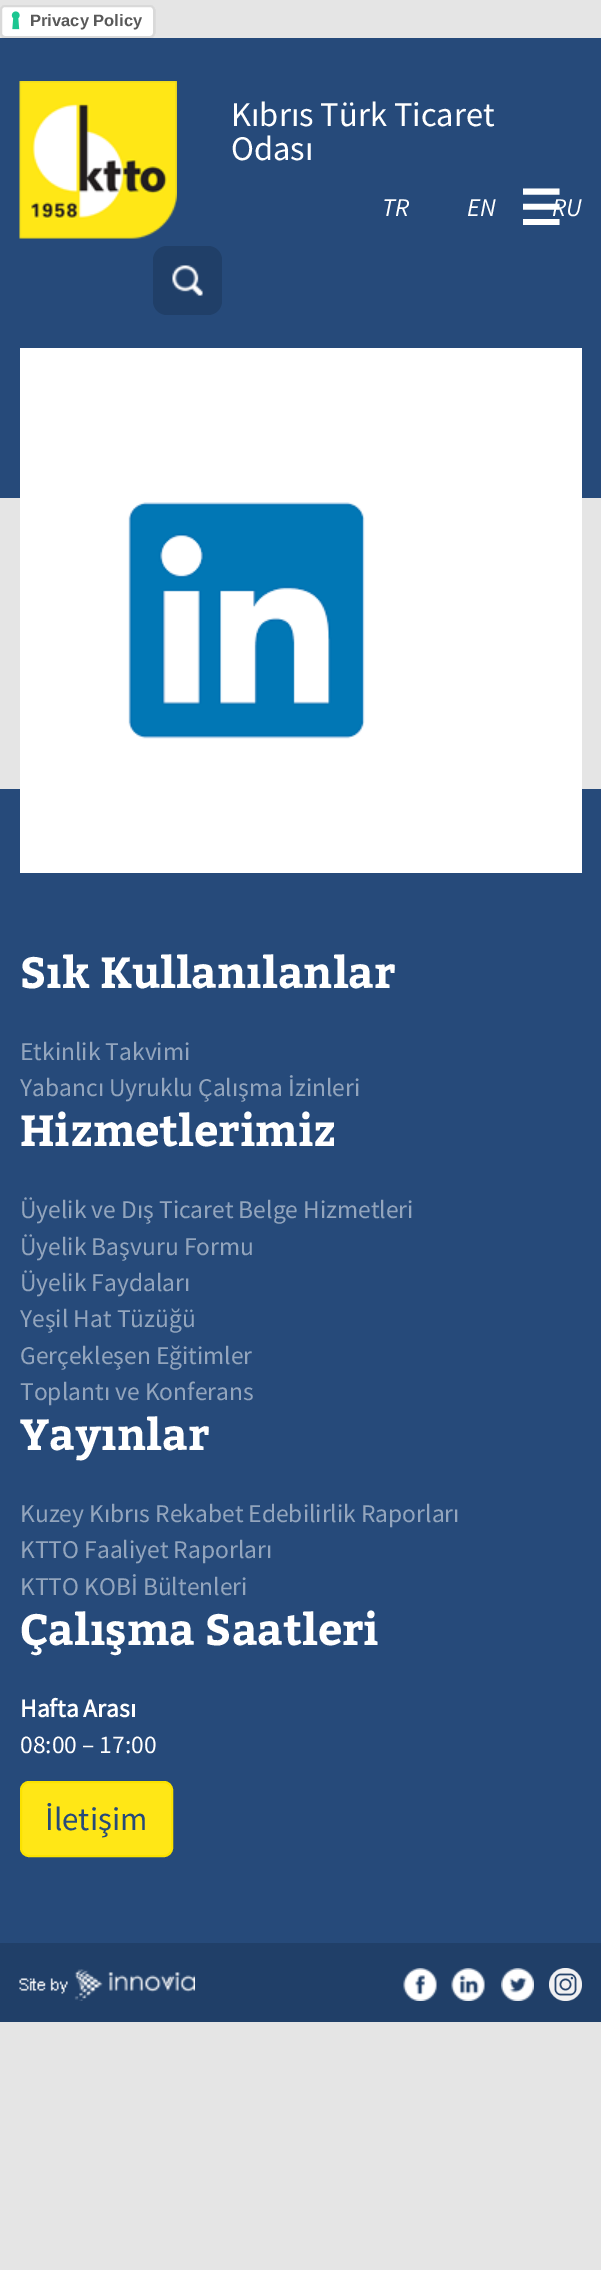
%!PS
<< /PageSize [601 2270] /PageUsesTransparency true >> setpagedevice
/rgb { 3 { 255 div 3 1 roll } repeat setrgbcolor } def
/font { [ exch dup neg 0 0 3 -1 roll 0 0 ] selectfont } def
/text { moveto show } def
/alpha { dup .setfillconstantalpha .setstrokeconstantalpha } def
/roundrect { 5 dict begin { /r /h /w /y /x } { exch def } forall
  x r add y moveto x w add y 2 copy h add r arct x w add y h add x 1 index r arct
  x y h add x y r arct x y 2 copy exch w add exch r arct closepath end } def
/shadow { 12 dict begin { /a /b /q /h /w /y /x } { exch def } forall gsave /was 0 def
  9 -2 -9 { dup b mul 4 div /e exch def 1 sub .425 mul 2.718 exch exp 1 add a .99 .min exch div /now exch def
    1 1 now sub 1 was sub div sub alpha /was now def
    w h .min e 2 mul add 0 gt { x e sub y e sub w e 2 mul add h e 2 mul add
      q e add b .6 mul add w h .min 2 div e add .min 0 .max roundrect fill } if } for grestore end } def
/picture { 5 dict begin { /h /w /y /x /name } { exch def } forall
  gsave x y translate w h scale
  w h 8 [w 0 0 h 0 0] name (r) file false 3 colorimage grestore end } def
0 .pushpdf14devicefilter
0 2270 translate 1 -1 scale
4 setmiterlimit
229 229 229 rgb
0 0 601 2270 rectfill
38 74 122 rgb
0 38 601 460 rectfill
0 0 0 rgb
2 8 151 30 3 1 0.15 shadow
255 255 255 rgb
0 5 155 33 5 roundrect fill
(img_01.rgb) 11 11 9 19 picture
0.15 alpha
0 0 0 rgb
2 setlinewidth
1 6 153 31 4 roundrect stroke
1 alpha
(img_02.rgb) 19 81 158 158 picture
32 63 104 rgb
153 246 69 69 14 roundrect fill
(img_03.rgb) 172 265 31 31 picture
38 74 122 rgb
0 789 601 1154 rectfill
255 255 255 rgb
20 348 562 525 rectfill
(img_04.rgb) 128 502 237 237 picture
255 231 22 rgb
21 1782 151 74 8 roundrect gsave fill grestore
251 226 0 rgb
stroke
32 63 104 rgb
0 1943 601 79 rectfill
(img_05.rgb) 19 1969 176 32 picture
(img_06.rgb) 403 1968 34 33 picture
(img_07.rgb) 451 1968 34 33 picture
(img_08.rgb) 501 1968 33 33 picture
(img_09.rgb) 549 1968 33 33 picture
/LiberationSans-Bold 16.5 font
89 89 89 rgb
(Privacy Policy) 30 26 text
/SourceSansPro-Regular 34.5 font
255 255 255 rgb
(Kıbrıs Türk Ticaret) 231 126 text
(Odası) 231 160 text
/SourceSansPro-Italic 25.5 font
(TR) 382 216 text
(EN) 467 216 text
(RU) 552 216 text
/DejaVuSans-Bold 48 font
(☰) 519 225 text
/Bitter-Bold 43.5 font
(Sık Kullanılanlar) 20 988 text
/SourceSansPro-Regular 25.5 font
147 165 189 rgb
(Etkinlik Takvimi) 20 1060 text
(Yabancı Uyruklu Çalışma İzinleri) 20 1096 text
/Bitter-Bold 43.5 font
255 255 255 rgb
(Hizmetlerimiz) 20 1146 text
/SourceSansPro-Regular 25.5 font
147 165 189 rgb
(Üyelik ve Dış Ticaret Belge Hizmetleri) 20 1218 text
(Üyelik Başvuru Formu) 20 1255 text
(Üyelik Faydaları) 20 1291 text
(Yeşil Hat Tüzüğü) 20 1327 text
(Gerçekleşen Eğitimler) 20 1364 text
(Toplantı ve Konferans) 20 1400 text
/Bitter-Bold 43.5 font
255 255 255 rgb
(Yayınlar) 20 1450 text
/SourceSansPro-Regular 25.5 font
147 165 189 rgb
(Kuzey Kıbrıs Rekabet Edebilirlik Raporları) 20 1522 text
(KTTO Faaliyet Raporları) 20 1558 text
(KTTO KOBİ Bültenleri) 20 1595 text
/Bitter-Bold 43.5 font
255 255 255 rgb
(Çalışma Saatleri) 20 1645 text
/SourceSansPro-Bold 25.5 font
(Hafta Arası) 20 1717 text
/SourceSansPro-Regular 25.5 font
(08:00 – 17:00) 20 1753 text
/SourceSansPro-Regular 33 font
38 74 122 rgb
(İletişim) 45 1830 text
.poppdf14devicefilter showpage
